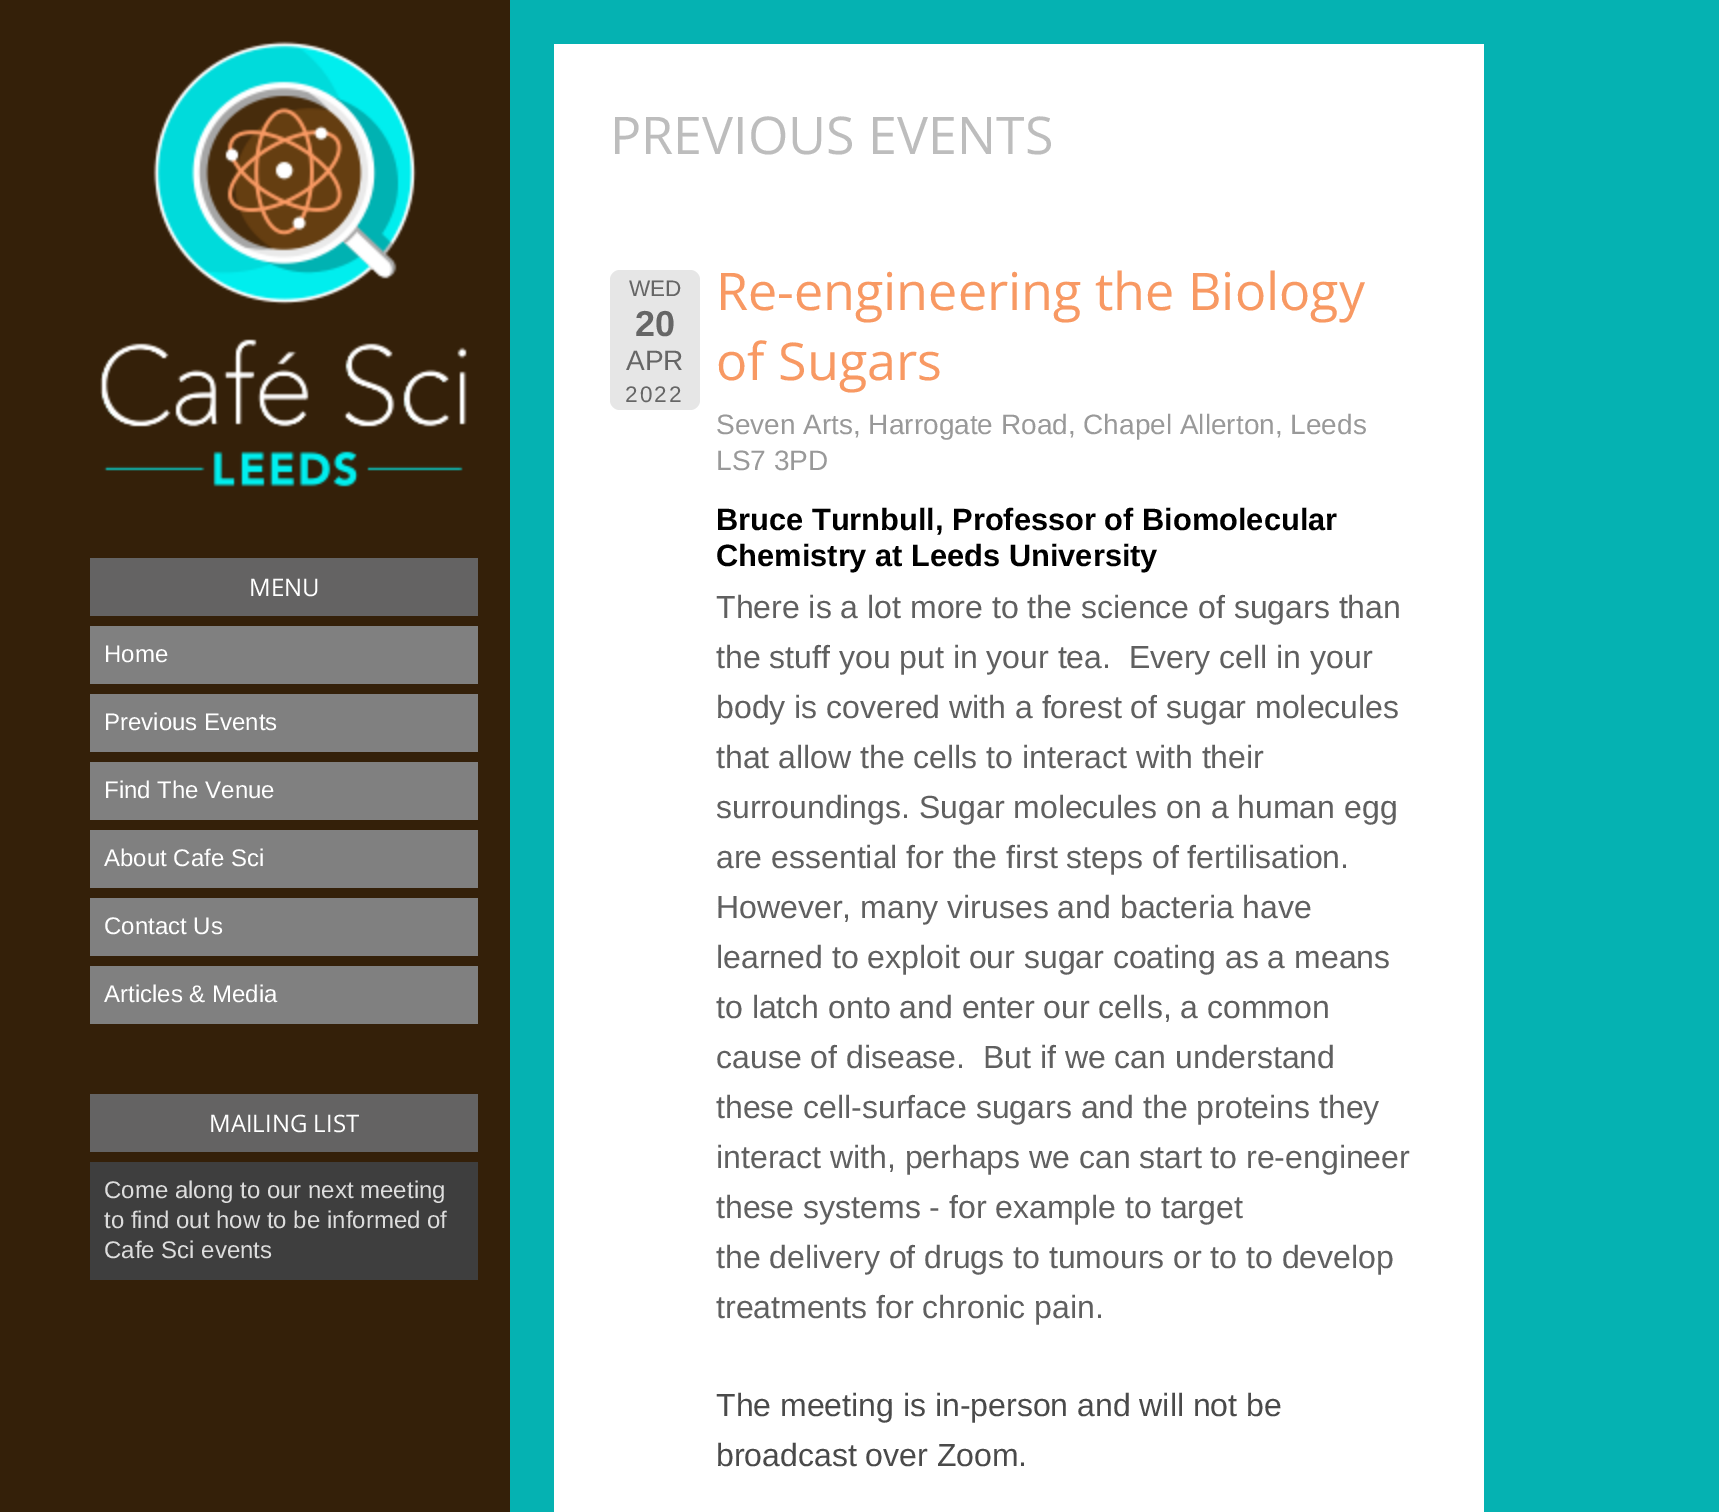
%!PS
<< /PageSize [1719 1512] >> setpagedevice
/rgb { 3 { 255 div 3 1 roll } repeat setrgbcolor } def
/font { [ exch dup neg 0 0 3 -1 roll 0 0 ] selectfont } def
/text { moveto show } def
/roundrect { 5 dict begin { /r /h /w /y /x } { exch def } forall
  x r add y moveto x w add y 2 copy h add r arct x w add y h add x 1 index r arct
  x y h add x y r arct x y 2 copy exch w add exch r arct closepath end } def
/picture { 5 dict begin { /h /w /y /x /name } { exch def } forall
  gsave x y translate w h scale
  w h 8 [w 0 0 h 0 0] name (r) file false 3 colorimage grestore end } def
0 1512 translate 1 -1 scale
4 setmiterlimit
5 178 178 rgb
0 0 1719 1512 rectfill
52 32 9 rgb
0 0 510 1512 rectfill
(img_01.rgb) 100 41 367 446 picture
100 99 99 rgb
90 558 388 58 rectfill
128 128 128 rgb
90 626 388 58 rectfill
90 694 388 58 rectfill
90 762 388 58 rectfill
90 830 388 58 rectfill
90 898 388 58 rectfill
90 966 388 58 rectfill
100 99 99 rgb
90 1094 388 58 rectfill
62 62 62 rgb
90 1162 388 118 rectfill
255 255 255 rgb
554 44 930 1468 rectfill
230 230 230 rgb
610 270 90 140 10 roundrect fill
/OpenSans-Regular 24 font
255 255 255 rgb
(MENU) 249 596 text
/LiberationSans-Regular 24 font
(Home) 104 662 text
(Previous Events) 104 730 text
(Find The Venue) 104 798 text
(About Cafe Sci) 104 866 text
(Contact Us) 104 934 text
(Articles & Media) 104 1002 text
/OpenSans-Regular 24 font
(MAILING LIST) 209 1132 text
/LiberationSans-Regular 24 font
221 221 221 rgb
(Come along to our next meeting) 104 1198 text
(to find out how to be informed of) 104 1228 text
(Cafe Sci events) 104 1258 text
/OpenSans-Regular 52 font
189 189 189 rgb
(PREVIOUS EVENTS) 610 154 text
/LiberationSans-Regular 22.5 font
102 102 102 rgb
(WED) 629 296 text
/LiberationSans-Bold 36 font
(20) 635 336 text
/LiberationSans-Regular 28 font
(APR) 626 370 text
/LiberationSans-Regular 22.5 font
625 402 moveto 2 0 (2022) ashow
/OpenSans-Regular 52 font
248 153 99 rgb
(Re-engineering the Biology) 716 310 text
(of Sugars) 716 380 text
/LiberationSans-Regular 28 font
153 153 153 rgb
(Seven Arts, Harrogate Road, Chapel Allerton, Leeds) 716 434 text
(LS7 3PD) 716 470 text
/LiberationSans-Bold 30.8 font
0 0 0 rgb
(Bruce Turnbull, Professor of Biomolecular) 716 530 text
(Chemistry at Leeds University) 716 566 text
/LiberationSans-Regular 32 font
96 96 96 rgb
(There is a lot more to the science of sugars than) 716 618 text
(the stuff you put in your tea.  Every cell in your) 716 668 text
(body is covered with a forest of sugar molecules) 716 718 text
(that allow the cells to interact with their) 716 768 text
(surroundings. Sugar molecules on a human egg) 716 818 text
(are essential for the first steps of fertilisation.) 716 868 text
(However, many viruses and bacteria have) 716 918 text
(learned to exploit our sugar coating as a means) 716 968 text
(to latch onto and enter our cells, a common) 716 1018 text
(cause of disease.  But if we can understand) 716 1068 text
(these cell-surface sugars and the proteins they) 716 1118 text
(interact with, perhaps we can start to re-engineer) 716 1168 text
(these systems - for example to target) 716 1218 text
(the delivery of drugs to tumours or to to develop) 716 1268 text
(treatments for chronic pain.) 716 1318 text
74 74 74 rgb
(The meeting is in-person and will not be) 716 1416 text
(broadcast over Zoom.) 716 1466 text
showpage
